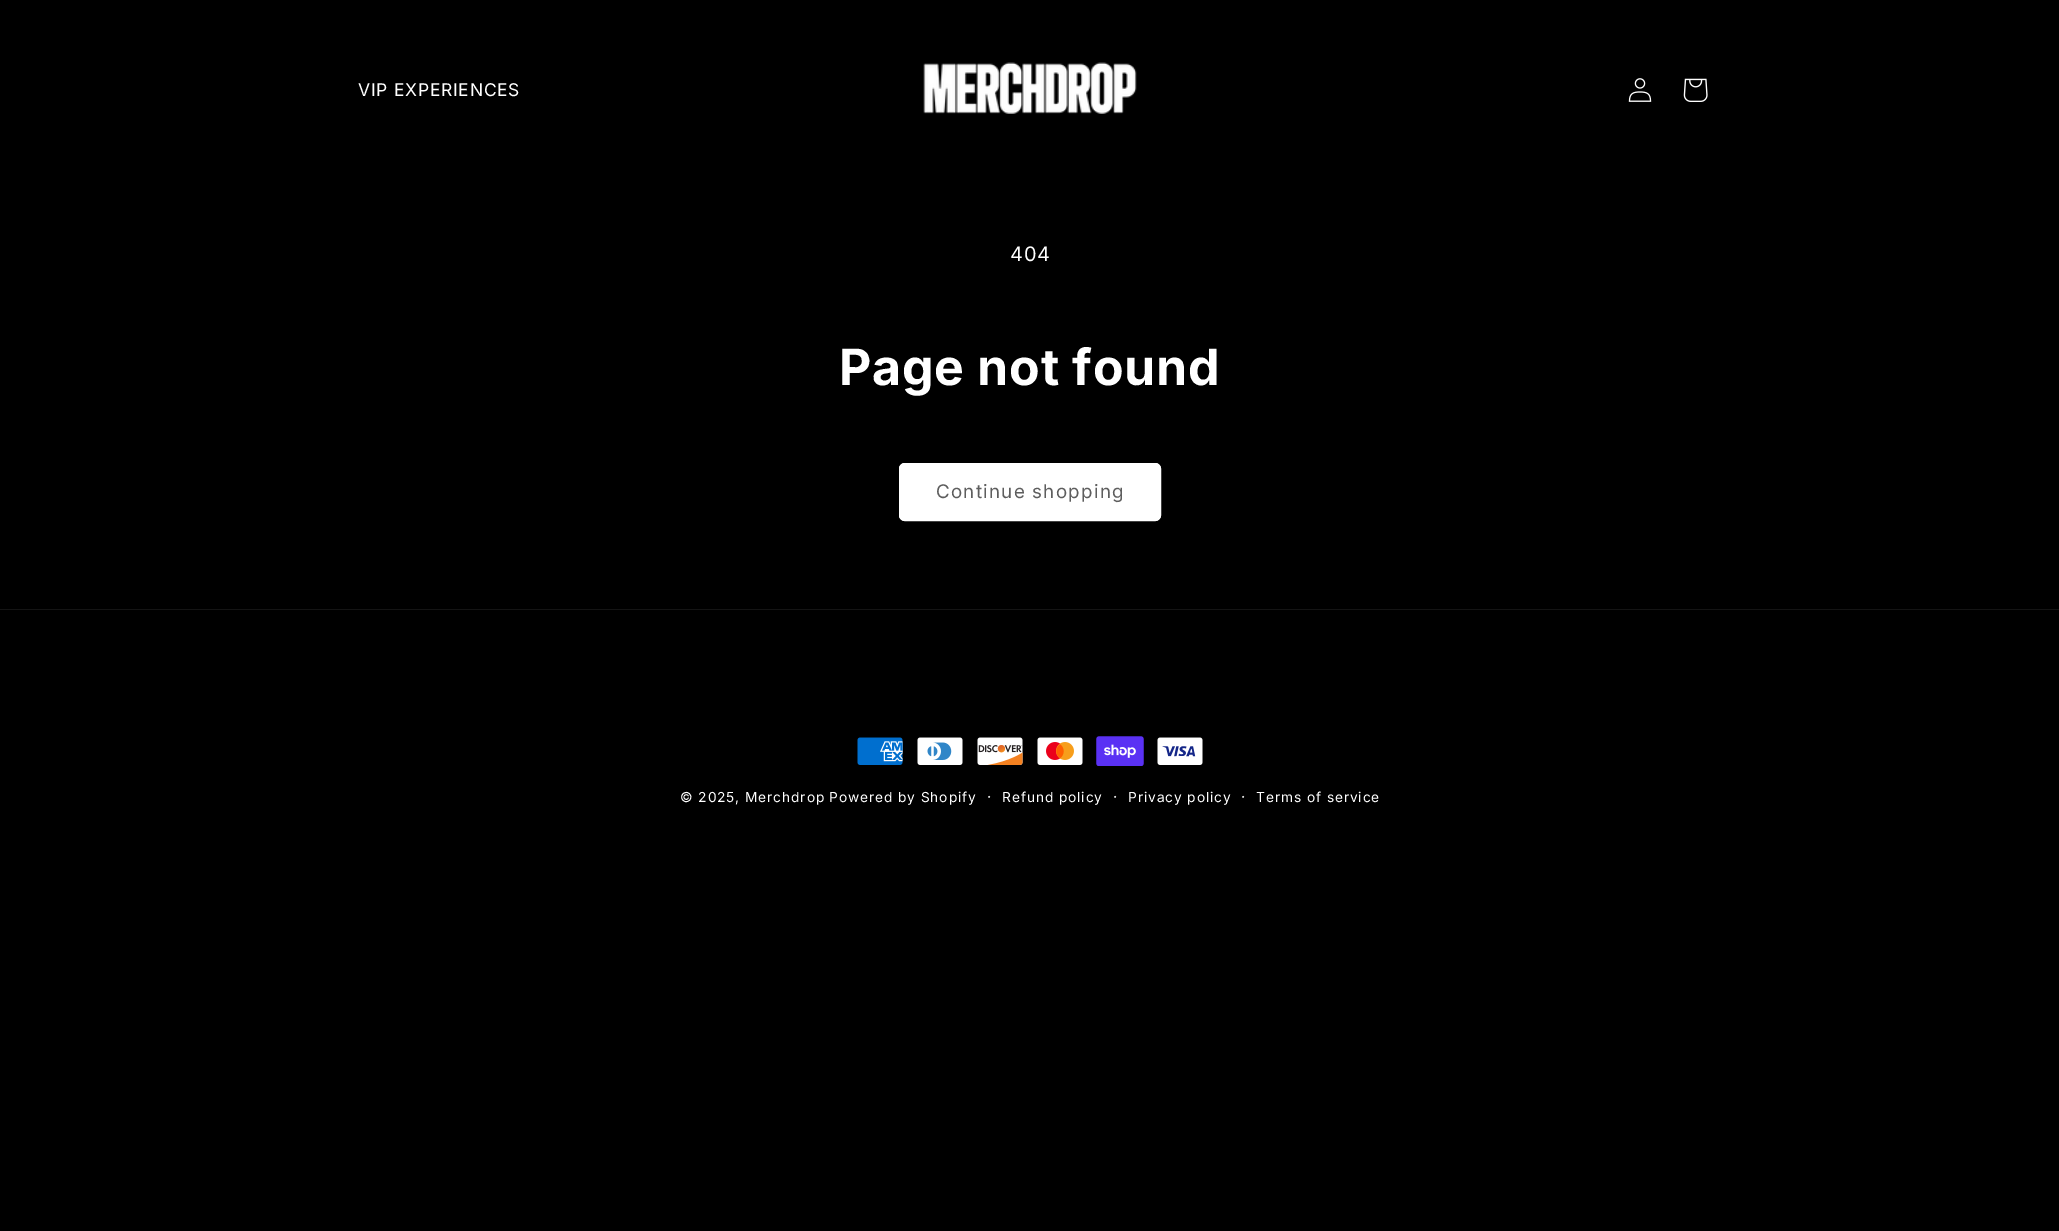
%!PS
<< /PageSize [2059 1231] >> setpagedevice
/rgb { 3 { 255 div 3 1 roll } repeat setrgbcolor } def
/font { [ exch dup neg 0 0 3 -1 roll 0 0 ] selectfont } def
/roundrect { 5 dict begin { /r /h /w /y /x } { exch def } forall
  x r add y moveto x w add y 2 copy h add r arct x w add y h add x 1 index r arct
  x y h add x y r arct x y 2 copy exch w add exch r arct closepath end } def
/picture { 5 dict begin { /h /w /y /x /name } { exch def } forall
  gsave x y translate w h scale
  w h 8 [w 0 0 h 0 0] name (r) file false 3 colorimage grestore end } def
0 1231 translate 1 -1 scale
4 setmiterlimit
0 0 0 rgb
0 0 2059 1231 rectfill
(img_01.rgb) 923 62 214 52 picture
(img_02.rgb) 1628 78 24 24 picture
(img_03.rgb) 1683 78 25 24 picture
255 255 255 rgb
899 463 262 58 6 roundrect fill
899.5 463.5 261 57 5.5 roundrect stroke
20 20 20 rgb
0 609 2059 1 rectfill
(img_04.rgb) 857 737 46 28 picture
(img_05.rgb) 917 737 46 28 picture
(img_06.rgb) 977 737 46 28 picture
(img_07.rgb) 1037 737 46 28 picture
(img_08.rgb) 1096 736 48 30 picture
(img_09.rgb) 1157 737 46 28 picture
/Inter-Regular 17.5 font
255 255 255 rgb
358 96 moveto 0.75 0 (VIP EXPERIENCES) ashow
/Inter-Regular 20 font
1010 261 moveto 0.75 0 (404) ashow
/Inter-Bold 50 font
839 385 moveto 0.75 0 (Page not found) ashow
/Inter-Regular 18.75 font
94 94 94 rgb
936 498 moveto 1.25 0 (Continue shopping) ashow
/Inter-Regular 13.75 font
255 255 255 rgb
680 802 moveto 0.9 0 (© 2025, Merchdrop) ashow
829 802 moveto 0.9 0 (Powered by Shopify) ashow
/Inter-Regular 15 font
987 802 moveto 0.9 0 (·) ashow
/Inter-Regular 13.75 font
1002 802 moveto 0.9 0 (Refund policy) ashow
/Inter-Regular 15 font
1113 802 moveto 0.9 0 (·) ashow
/Inter-Regular 13.75 font
1128 802 moveto 0.9 0 (Privacy policy) ashow
/Inter-Regular 15 font
1241 802 moveto 0.9 0 (·) ashow
/Inter-Regular 13.75 font
1256 802 moveto 0.9 0 (Terms of service) ashow
showpage
